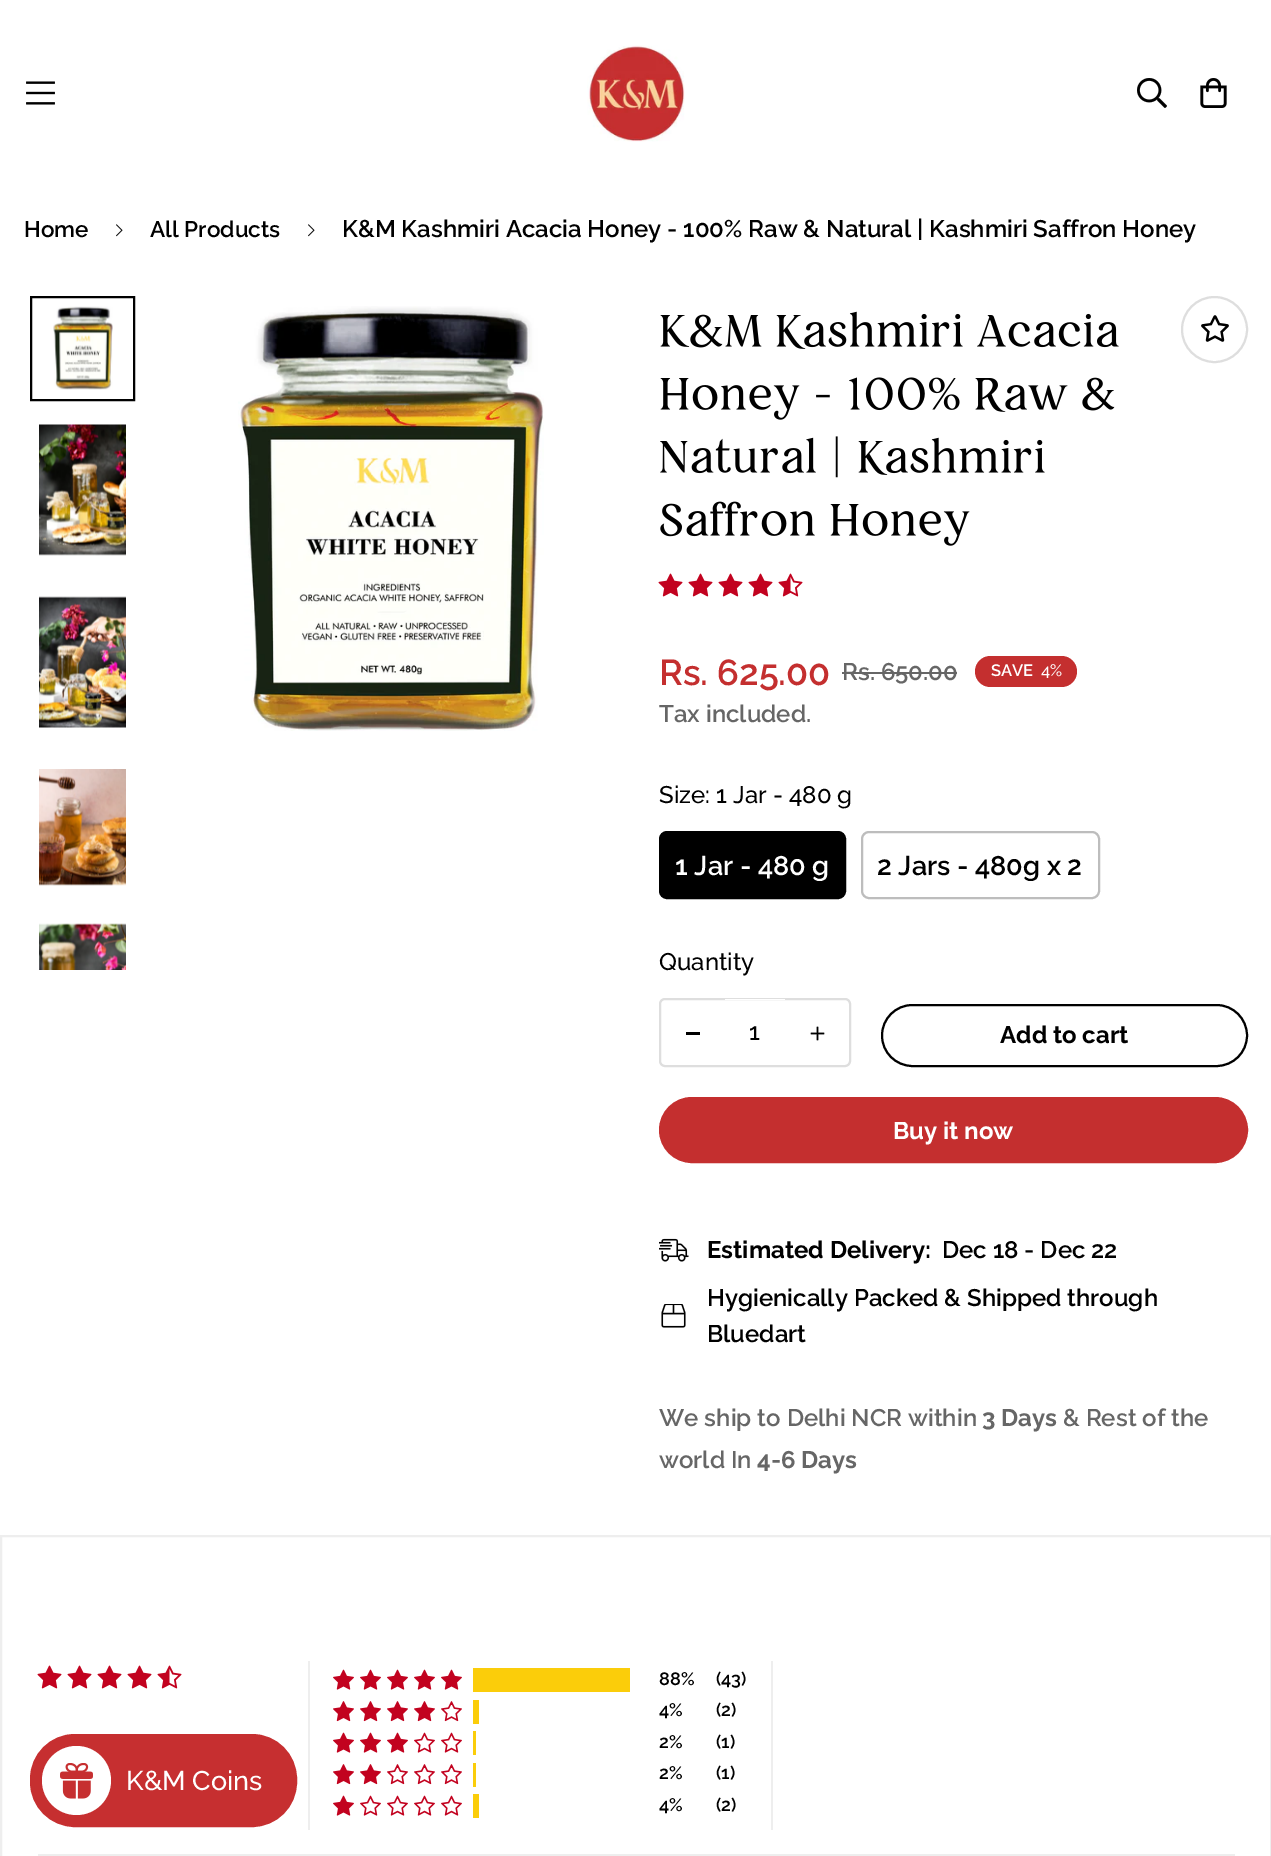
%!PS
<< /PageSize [1271 1856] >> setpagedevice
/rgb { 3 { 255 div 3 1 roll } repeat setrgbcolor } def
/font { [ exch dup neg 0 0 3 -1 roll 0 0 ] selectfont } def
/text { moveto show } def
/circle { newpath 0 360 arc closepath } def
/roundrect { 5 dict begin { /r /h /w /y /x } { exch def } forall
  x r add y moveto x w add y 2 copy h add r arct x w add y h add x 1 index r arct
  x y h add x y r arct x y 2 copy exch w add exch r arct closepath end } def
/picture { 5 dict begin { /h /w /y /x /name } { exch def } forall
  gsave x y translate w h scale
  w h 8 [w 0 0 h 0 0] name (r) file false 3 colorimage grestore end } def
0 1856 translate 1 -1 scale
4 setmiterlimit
255 255 255 rgb
0 0 1271 1856 rectfill
(img_01.rgb) 26 81 29 24 picture
(img_02.rgb) 587 45 98 97 picture
(img_03.rgb) 1137 78 30 30 picture
(img_04.rgb) 1200 78 27 30 picture
(img_05.rgb) 116 224 7 13 picture
(img_05.rgb) 308 224 7 13 picture
0 0 0 rgb
2 setlinewidth
31 297 103 103 rectstroke
(img_06.rgb) 53 306 60 84 picture
(img_07.rgb) 39 424 87 132 picture
(img_08.rgb) 39 596 87 132 picture
(img_09.rgb) 39 769 87 117 picture
(img_10.rgb) 39 923 87 47 picture
(img_11.rgb) 238 306 306 425 picture
(img_12.rgb) 660 311 459 38 picture
(img_13.rgb) 660 377 455 43 picture
(img_14.rgb) 660 436 385 42 picture
(img_15.rgb) 660 501 310 45 picture
222 222 222 rgb
1214.5 329.5 32.5 circle stroke
(img_16.rgb) 1201 315 28 27 picture
(img_17.rgb) 658 573 25 24 picture
(img_17.rgb) 688 573 25 24 picture
(img_17.rgb) 718 573 25 24 picture
(img_17.rgb) 748 573 25 24 picture
(img_18.rgb) 778 573 25 24 picture
102 102 102 rgb
842 672 115 2 rectfill
196 47 47 rgb
975 656 102 31 15.5 roundrect fill
0 0 0 rgb
660 832 185 66 7 roundrect gsave fill grestore
stroke
189 189 189 rgb
862 832 237 66 7 roundrect stroke
222 222 222 rgb
660 999 190 67 5 roundrect stroke
0 0 0 rgb
686 1032 14 3 rectfill
255 255 255 rgb
725 999 60 1 rectfill
(img_19.rgb) 810 1026 15 15 picture
0 0 0 rgb
882 1005 365 61 30.5 roundrect stroke
196 47 47 rgb
660 1098 587 64 32 roundrect gsave fill grestore
stroke
(img_20.rgb) 659 1238 30 24 picture
(img_21.rgb) 661 1304 25 24 picture
238 238 238 rgb
1 1536 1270 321 rectstroke
(img_17.rgb) 37 1665 25 24 picture
(img_17.rgb) 67 1665 25 24 picture
(img_17.rgb) 97 1665 25 24 picture
(img_17.rgb) 127 1665 25 24 picture
(img_18.rgb) 157 1665 25 24 picture
771 1661 2 169 rectfill
308 1661 2 169 rectfill
(img_22.rgb) 333 1669 21 21 picture
(img_22.rgb) 360 1669 21 21 picture
(img_22.rgb) 387 1669 21 21 picture
(img_22.rgb) 414 1669 21 21 picture
(img_22.rgb) 441 1669 21 21 picture
251 205 10 rgb
473 1668 157 24 rectfill
(img_23.rgb) 333 1701 21 21 picture
(img_23.rgb) 360 1701 21 21 picture
(img_23.rgb) 387 1701 21 21 picture
(img_23.rgb) 414 1701 21 21 picture
(img_24.rgb) 441 1701 21 21 picture
473 1700 6 24 rectfill
(img_22.rgb) 333 1732 21 21 picture
(img_22.rgb) 360 1732 21 21 picture
(img_22.rgb) 387 1732 21 21 picture
(img_25.rgb) 414 1732 21 21 picture
(img_25.rgb) 441 1732 21 21 picture
473 1731 3 24 rectfill
(img_23.rgb) 333 1764 21 21 picture
(img_23.rgb) 360 1764 21 21 picture
(img_24.rgb) 387 1764 21 21 picture
(img_24.rgb) 414 1764 21 21 picture
(img_24.rgb) 441 1764 21 21 picture
473 1763 3 24 rectfill
(img_22.rgb) 333 1795 21 21 picture
(img_25.rgb) 360 1795 21 21 picture
(img_25.rgb) 387 1795 21 21 picture
(img_25.rgb) 414 1795 21 21 picture
(img_25.rgb) 441 1795 21 21 picture
473 1794 6 24 rectfill
238 238 238 rgb
38 1854 1197 2 rectfill
198 47 48 rgb
31 1735 265 91 44 roundrect gsave fill grestore
stroke
255 255 255 rgb
76.5 1780.5 34.5 circle fill
(img_26.rgb) 60 1763 33 36 picture
/Raleway-SemiBold 22.5 font
0 0 0 rgb
(Home) 24 237 text
(All Products) 150 237 text
/Raleway-SemiBold 24 font
(K&M Kashmiri Acacia Honey - 100% Raw & Natural | Kashmiri Saffron Honey) 342 237 text
/Raleway-SemiBold 36 font
196 47 47 rgb
(Rs. 625.00) 659 685 text
/Raleway-SemiBold 24 font
102 102 102 rgb
(Rs. 650.00) 842 680 text
/Raleway-SemiBold 16.5 font
255 255 255 rgb
(SAVE) 991 676 text
/Raleway-Medium 16.5 font
(4%) 1041 676 text
/Raleway-SemiBold 24 font
102 102 102 rgb
(Tax included.) 659 722 text
/Raleway-Medium 24 font
0 0 0 rgb
(Size: 1 Jar - 480 g) 659 803 text
/Raleway-SemiBold 27 font
255 255 255 rgb
(1 Jar - 480 g) 675 875 text
0 0 0 rgb
(2 Jars - 480g x 2) 877 875 text
/Raleway-Medium 24 font
(Quantity) 659 970 text
(1) 749 1040 text
/Raleway-Bold 24 font
(Add to cart) 1000 1043 text
255 255 255 rgb
(Buy it now) 893 1139 text
0 0 0 rgb
(Estimated Delivery:) 707 1258 text
/Raleway-SemiBold 24 font
(Dec 18 - Dec 22) 942 1258 text
(Hygienically Packed & Shipped through) 707 1306 text
(Bluedart) 707 1342 text
102 102 102 rgb
(We ship to Delhi NCR within) 659 1426 text
/Raleway-Bold 24 font
(3 Days) 982 1426 text
/Raleway-SemiBold 24 font
(& Rest of the) 1063 1426 text
(world In) 659 1468 text
/Raleway-Bold 24 font
(4-6 Days) 757 1468 text
/Raleway-SemiBold 18 font
0 0 0 rgb
(88%) 659 1685 text
(\(43\)) 716 1685 text
(4%) 659 1716 text
(\(2\)) 716 1716 text
(2%) 659 1748 text
(\(1\)) 716 1748 text
(2%) 659 1779 text
(\(1\)) 716 1779 text
(4%) 659 1811 text
(\(2\)) 716 1811 text
/Raleway-Medium 27 font
255 255 255 rgb
(K&M Coins) 126 1790 text
showpage
